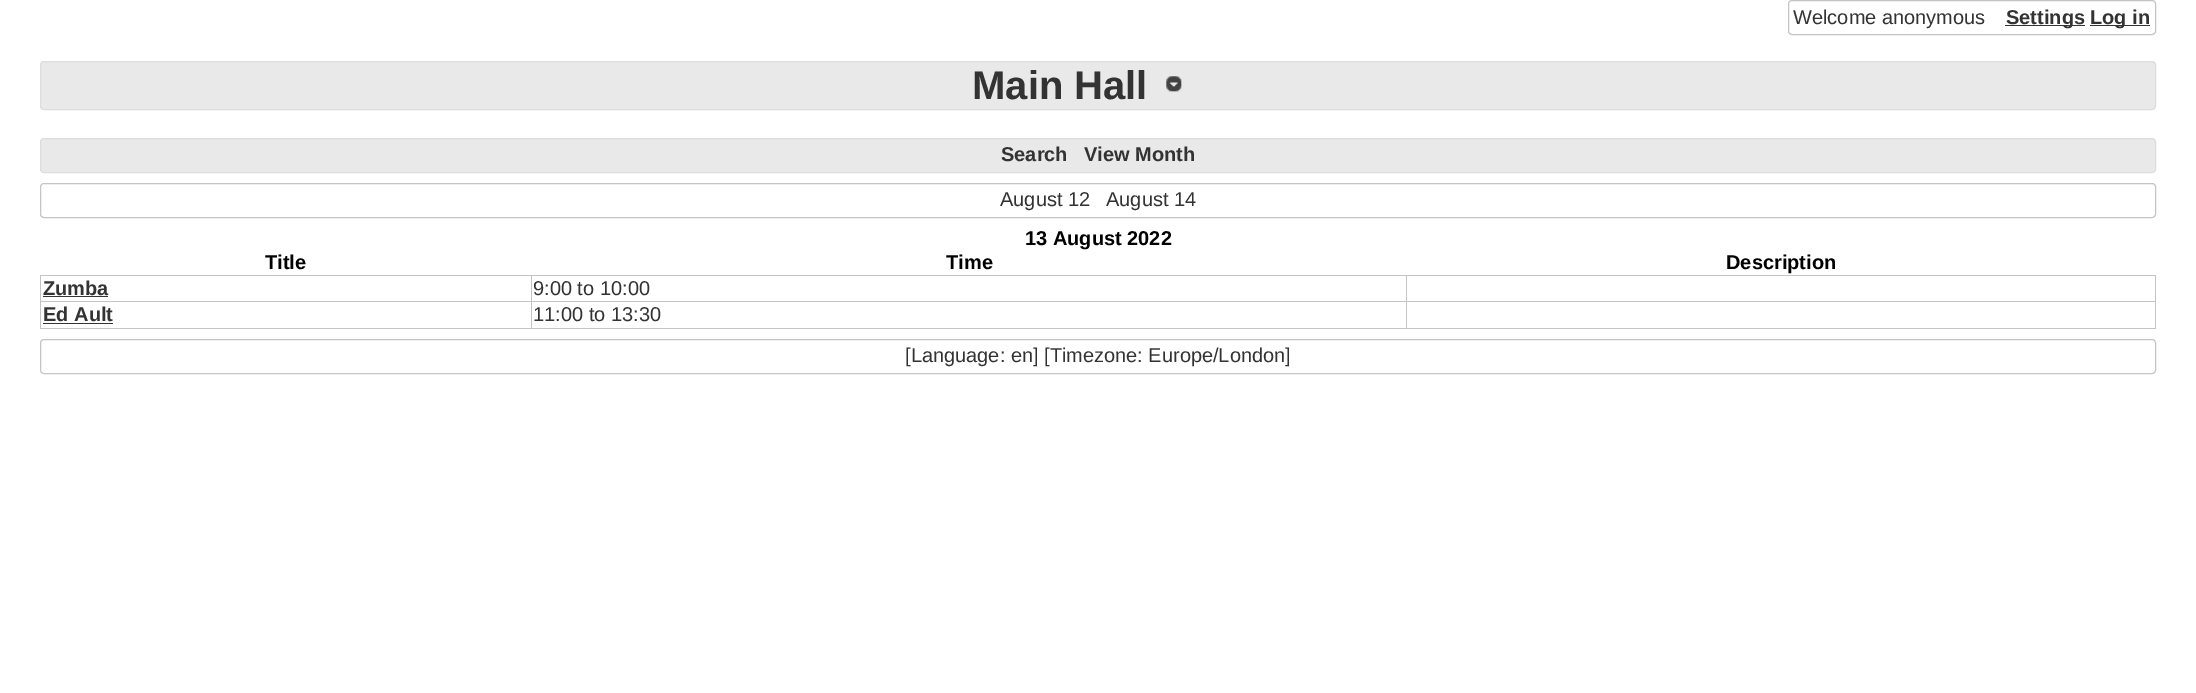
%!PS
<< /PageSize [2196 693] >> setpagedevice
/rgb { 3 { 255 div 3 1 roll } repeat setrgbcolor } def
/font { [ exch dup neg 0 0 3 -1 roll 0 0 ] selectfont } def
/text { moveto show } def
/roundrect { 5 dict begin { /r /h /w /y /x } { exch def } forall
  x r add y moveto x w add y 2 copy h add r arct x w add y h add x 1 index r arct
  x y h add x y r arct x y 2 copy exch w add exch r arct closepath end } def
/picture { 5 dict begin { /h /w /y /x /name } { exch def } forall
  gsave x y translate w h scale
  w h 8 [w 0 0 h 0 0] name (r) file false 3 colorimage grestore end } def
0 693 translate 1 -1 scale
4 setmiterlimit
255 255 255 rgb
0 0 2196 693 rectfill
197 197 197 rgb
1788.5 0.5 367 34 3.5 roundrect stroke
51 51 51 rgb
2005 25 80 1 rectfill
2090 25 60 1 rectfill
233 233 233 rgb
40.5 61.5 2115 48 3.5 roundrect gsave fill grestore
221 221 221 rgb
stroke
(img_01.rgb) 1166 76 16 16 picture
233 233 233 rgb
40.5 138.5 2115 34 3.5 roundrect gsave fill grestore
221 221 221 rgb
stroke
197 197 197 rgb
40.5 183.5 2115 34 3.5 roundrect stroke
1406 275 750 1 rectfill
1406 301 750 1 rectfill
2155 301 1 28 rectfill
1406 328 750 1 rectfill
1406 301 1 28 rectfill
531 301 877 1 rectfill
1406 275 1 28 rectfill
531 275 877 1 rectfill
531 328 877 1 rectfill
531 301 1 28 rectfill
40 301 493 1 rectfill
531 275 1 28 rectfill
40 275 493 1 rectfill
40 328 493 1 rectfill
40 301 1 28 rectfill
40 275 1 28 rectfill
51 51 51 rgb
43 296 65 1 rectfill
197 197 197 rgb
2155 275 1 28 rectfill
51 51 51 rgb
43 323 70 1 rectfill
197 197 197 rgb
40.5 339.5 2115 34 3.5 roundrect stroke
/LiberationSans-Regular 20 font
51 51 51 rgb
(Welcome anonymous) 1793 24 text
/LiberationSans-Bold 20 font
(Settings) 2006 24 text
(Log in) 2090 24 text
/LiberationSans-Bold 40 font
(Main Hall) 972 99 text
/LiberationSans-Bold 20 font
(Search) 1001 161 text
(View Month) 1084 161 text
/LiberationSans-Regular 20 font
(August 12) 1000 206 text
(August 14) 1106 206 text
/LiberationSans-Bold 20 font
0 0 0 rgb
(13 August 2022) 1025 245 text
(Title) 265 269 text
(Time) 946 269 text
(Description) 1726 269 text
51 51 51 rgb
(Zumba) 43 295 text
/LiberationSans-Regular 20 font
(9:00 to 10:00) 533 295 text
/LiberationSans-Bold 20 font
(Ed Ault) 43 321 text
/LiberationSans-Regular 20 font
(11:00 to 13:30) 533 321 text
([Language: en] [Timezone: Europe/London]) 905 362 text
showpage
